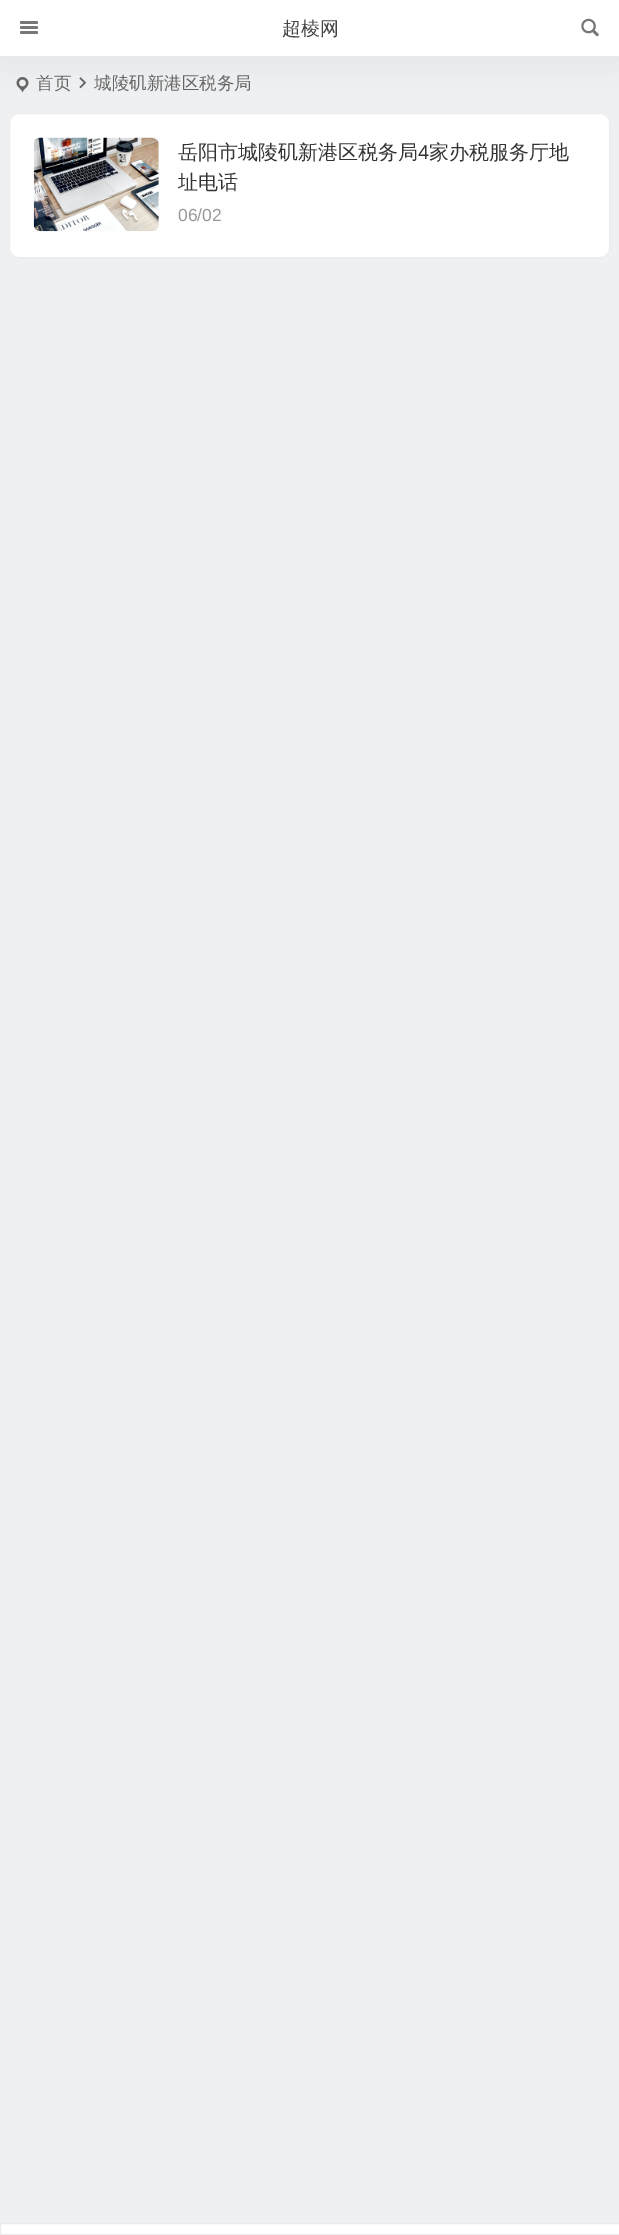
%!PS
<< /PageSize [619 2235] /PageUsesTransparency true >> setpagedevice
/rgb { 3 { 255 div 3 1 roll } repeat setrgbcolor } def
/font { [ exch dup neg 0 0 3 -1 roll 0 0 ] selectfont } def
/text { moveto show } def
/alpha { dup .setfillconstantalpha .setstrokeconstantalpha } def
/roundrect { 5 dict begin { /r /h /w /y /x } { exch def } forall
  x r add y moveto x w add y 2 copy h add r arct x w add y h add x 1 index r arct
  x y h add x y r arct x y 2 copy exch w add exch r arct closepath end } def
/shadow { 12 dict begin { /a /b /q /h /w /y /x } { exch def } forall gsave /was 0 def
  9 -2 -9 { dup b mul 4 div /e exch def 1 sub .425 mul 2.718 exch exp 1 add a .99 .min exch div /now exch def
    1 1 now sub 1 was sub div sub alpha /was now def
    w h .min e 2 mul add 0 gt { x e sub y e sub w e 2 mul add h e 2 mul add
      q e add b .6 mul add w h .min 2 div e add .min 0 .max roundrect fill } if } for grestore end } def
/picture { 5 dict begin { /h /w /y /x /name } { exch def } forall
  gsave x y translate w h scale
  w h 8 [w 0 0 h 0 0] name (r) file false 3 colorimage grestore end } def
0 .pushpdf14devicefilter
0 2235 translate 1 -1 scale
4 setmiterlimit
239 240 242 rgb
0 0 619 2235 rectfill
(img_02.rgb) 16 77 13 16 picture
(img_03.rgb) 79 77 8 12 picture
255 255 255 rgb
9 113 601 145 10 roundrect fill
0.07 alpha
0 0 0 rgb
9.5 113.5 600 144 9.5 roundrect stroke
1 alpha
0 4 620 56 0 19 0.06 shadow
255 255 255 rgb
0 0 619 56 rectfill
119 119 119 rgb
20 26 18 3 1.5 roundrect fill
20 21 18 3 1.5 roundrect fill
20 31 18 3 1.5 roundrect fill
(img_01.rgb) 581 18 18 19 picture
(img_04.rgb) 33 137 126 95 picture
255 255 255 rgb
0.5 2223.5 moveto 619 0 rlineto 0 11 rlineto -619 0 rlineto closepath gsave fill grestore
236 236 236 rgb
stroke
/WenQuanYiZenHei-Medium 19 font
68 68 68 rgb
(超棱网) 282 35 text
/WenQuanYiZenHei-Medium 17.5 font
102 102 102 rgb
(首页) 36 89 text
(城陵矶新港区税务局) 94 89 text
/WenQuanYiZenHei-Medium 20 font
51 51 51 rgb
(岳阳市城陵矶新港区税务局) 178 159 text
/LiberationSans-Regular 20 font
(4) 418 159 text
/WenQuanYiZenHei-Medium 20 font
(家办税服务厅地) 429 159 text
(址电话) 178 189 text
/LiberationSans-Regular 17.5 font
153 153 153 rgb
(06/02) 178 221 text
.poppdf14devicefilter showpage
